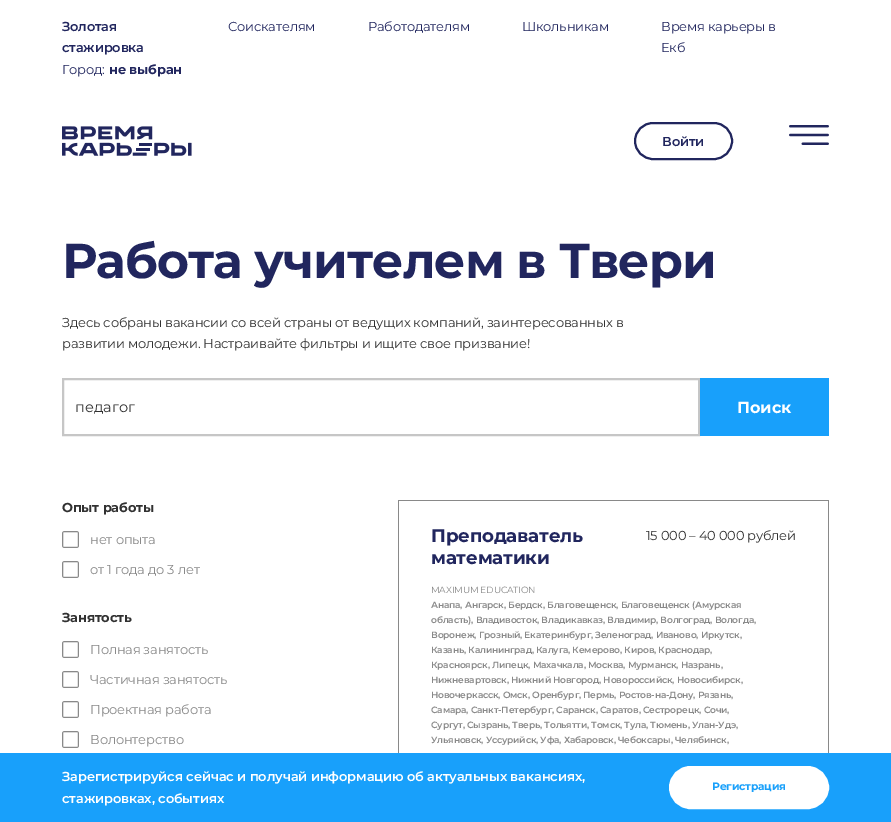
%!PS
<< /PageSize [891 822] >> setpagedevice
/rgb { 3 { 255 div 3 1 roll } repeat setrgbcolor } def
/font { [ exch dup neg 0 0 3 -1 roll 0 0 ] selectfont } def
/text { moveto show } def
/roundrect { 5 dict begin { /r /h /w /y /x } { exch def } forall
  x r add y moveto x w add y 2 copy h add r arct x w add y h add x 1 index r arct
  x y h add x y r arct x y 2 copy exch w add exch r arct closepath end } def
/picture { 5 dict begin { /h /w /y /x /name } { exch def } forall
  gsave x y translate w h scale
  w h 8 [w 0 0 h 0 0] name (r) file false 3 colorimage grestore end } def
0 822 translate 1 -1 scale
4 setmiterlimit
255 255 255 rgb
0 0 891 822 rectfill
(img_01.rgb) 62 126 130 30 picture
33 38 94 rgb
2 setlinewidth
635 123 97 36 18 roundrect stroke
(img_02.rgb) 789 125 40 20 picture
198 198 198 rgb
63 379 636 56 rectstroke
24 160 251 rgb
700 378 129 58 rectfill
(img_03.rgb) 62 531 17 17 picture
(img_03.rgb) 62 561 17 17 picture
(img_03.rgb) 62 641 17 17 picture
(img_03.rgb) 62 671 17 17 picture
(img_03.rgb) 62 701 17 17 picture
(img_03.rgb) 62 731 17 17 picture
137 137 137 rgb
398 500 431 1 rectfill
828 500 1 253 rectfill
398 500 1 253 rectfill
24 160 251 rgb
0 753 891 69 rectfill
255 255 255 rgb
670 767 158 41 20.5 roundrect gsave fill grestore
stroke
/Montserrat-SemiBold 13 font
33 38 94 rgb
62 31 moveto -0.2 0 (Золотая) ashow
62 52 moveto -0.2 0 (стажировка) ashow
/Montserrat-Regular 13 font
228 31 moveto -0.2 0 (Соискателям) ashow
368 31 moveto -0.2 0 (Работодателям) ashow
522 31 moveto -0.2 0 (Школьникам) ashow
661 31 moveto -0.2 0 (Время карьеры в) ashow
661 52 moveto -0.2 0 (Екб) ashow
62 74 moveto -0.2 0 (Город:) ashow
/Montserrat-Bold 13 font
109 74 moveto -0.2 0 (не выбран) ashow
/Montserrat-SemiBold 13 font
662 146 moveto -0.13 0 (Войти) ashow
/Montserrat-Bold 48.9 font
62 278 moveto -1 0 (Работа учителем в Твери) ashow
/Montserrat-Regular 13 font
49 49 49 rgb
62 327 moveto -0.2 0 (Здесь собраны вакансии со всей страны от ведущих компаний, заинтересованных в) ashow
62 348 moveto -0.2 0 (развитии молодежи. Настраивайте фильтры и ищите свое призвание!) ashow
/Montserrat-Regular 14.5 font
(педагог) 75 412 text
/Montserrat-Bold 16 font
255 255 255 rgb
(Поиск) 737 413 text
/Montserrat-Bold 13 font
49 49 49 rgb
62 512 moveto -0.2 0 (Опыт работы) ashow
/Montserrat-Regular 13 font
137 137 137 rgb
90 544 moveto -0.2 0 (нет опыта) ashow
90 574 moveto -0.2 0 (от 1 года до 3 лет) ashow
/Montserrat-Bold 13 font
49 49 49 rgb
62 622 moveto -0.2 0 (Занятость) ashow
/Montserrat-Regular 13 font
137 137 137 rgb
90 654 moveto -0.2 0 (Полная занятость) ashow
90 684 moveto -0.2 0 (Частичная занятость) ashow
90 714 moveto -0.2 0 (Проектная работа) ashow
90 744 moveto -0.2 0 (Волонтерство) ashow
/Montserrat-Bold 18.25 font
33 38 94 rgb
431 542 moveto -0.2 0 (Преподаватель) ashow
431 564 moveto -0.2 0 (математики) ashow
/Montserrat-Regular 13 font
49 49 49 rgb
646 540 moveto -0.2 0 (15 000 – 40 000 рублей) ashow
/Montserrat-Regular 9.1 font
137 137 137 rgb
431 593 moveto -0.2 0 (MAXIMUM EDUCATION) ashow
/Montserrat-SemiBold 9.1 font
431 608 moveto -0.2 0 (Анапа, Ангарск, Бердск, Благовещенск, Благовещенск \(Амурская) ashow
431 623 moveto -0.2 0 (область\), Владивосток, Владикавказ, Владимир, Волгоград, Вологда,) ashow
431 638 moveto -0.2 0 (Воронеж, Грозный, Екатеринбург, Зеленоград, Иваново, Иркутск,) ashow
431 653 moveto -0.2 0 (Казань, Калининград, Калуга, Кемерово, Киров, Краснодар,) ashow
431 668 moveto -0.2 0 (Красноярск, Липецк, Махачкала, Москва, Мурманск, Назрань,) ashow
431 683 moveto -0.2 0 (Нижневартовск, Нижний Новгород, Новороссийск, Новосибирск,) ashow
431 698 moveto -0.2 0 (Новочеркасск, Омск, Оренбург, Пермь, Ростов-на-Дону, Рязань,) ashow
431 713 moveto -0.2 0 (Самара, Санкт-Петербург, Саранск, Саратов, Сестрорецк, Сочи,) ashow
431 728 moveto -0.2 0 (Сургут, Сызрань, Тверь, Тольятти, Томск, Тула, Тюмень, Улан-Удэ,) ashow
431 743 moveto -0.2 0 (Ульяновск, Уссурийск, Уфа, Хабаровск, Чебоксары, Челябинск,) ashow
/Montserrat-SemiBold 13 font
255 255 255 rgb
62 781 moveto -0.13 0 (Зарегистрируйся сейчас и получай информацию об актуальных вакансиях,) ashow
62 803 moveto -0.13 0 (стажировках, событиях) ashow
/Montserrat-Bold 10.75 font
24 160 251 rgb
712 790 moveto -0.2 0 (Регистрация) ashow
showpage
